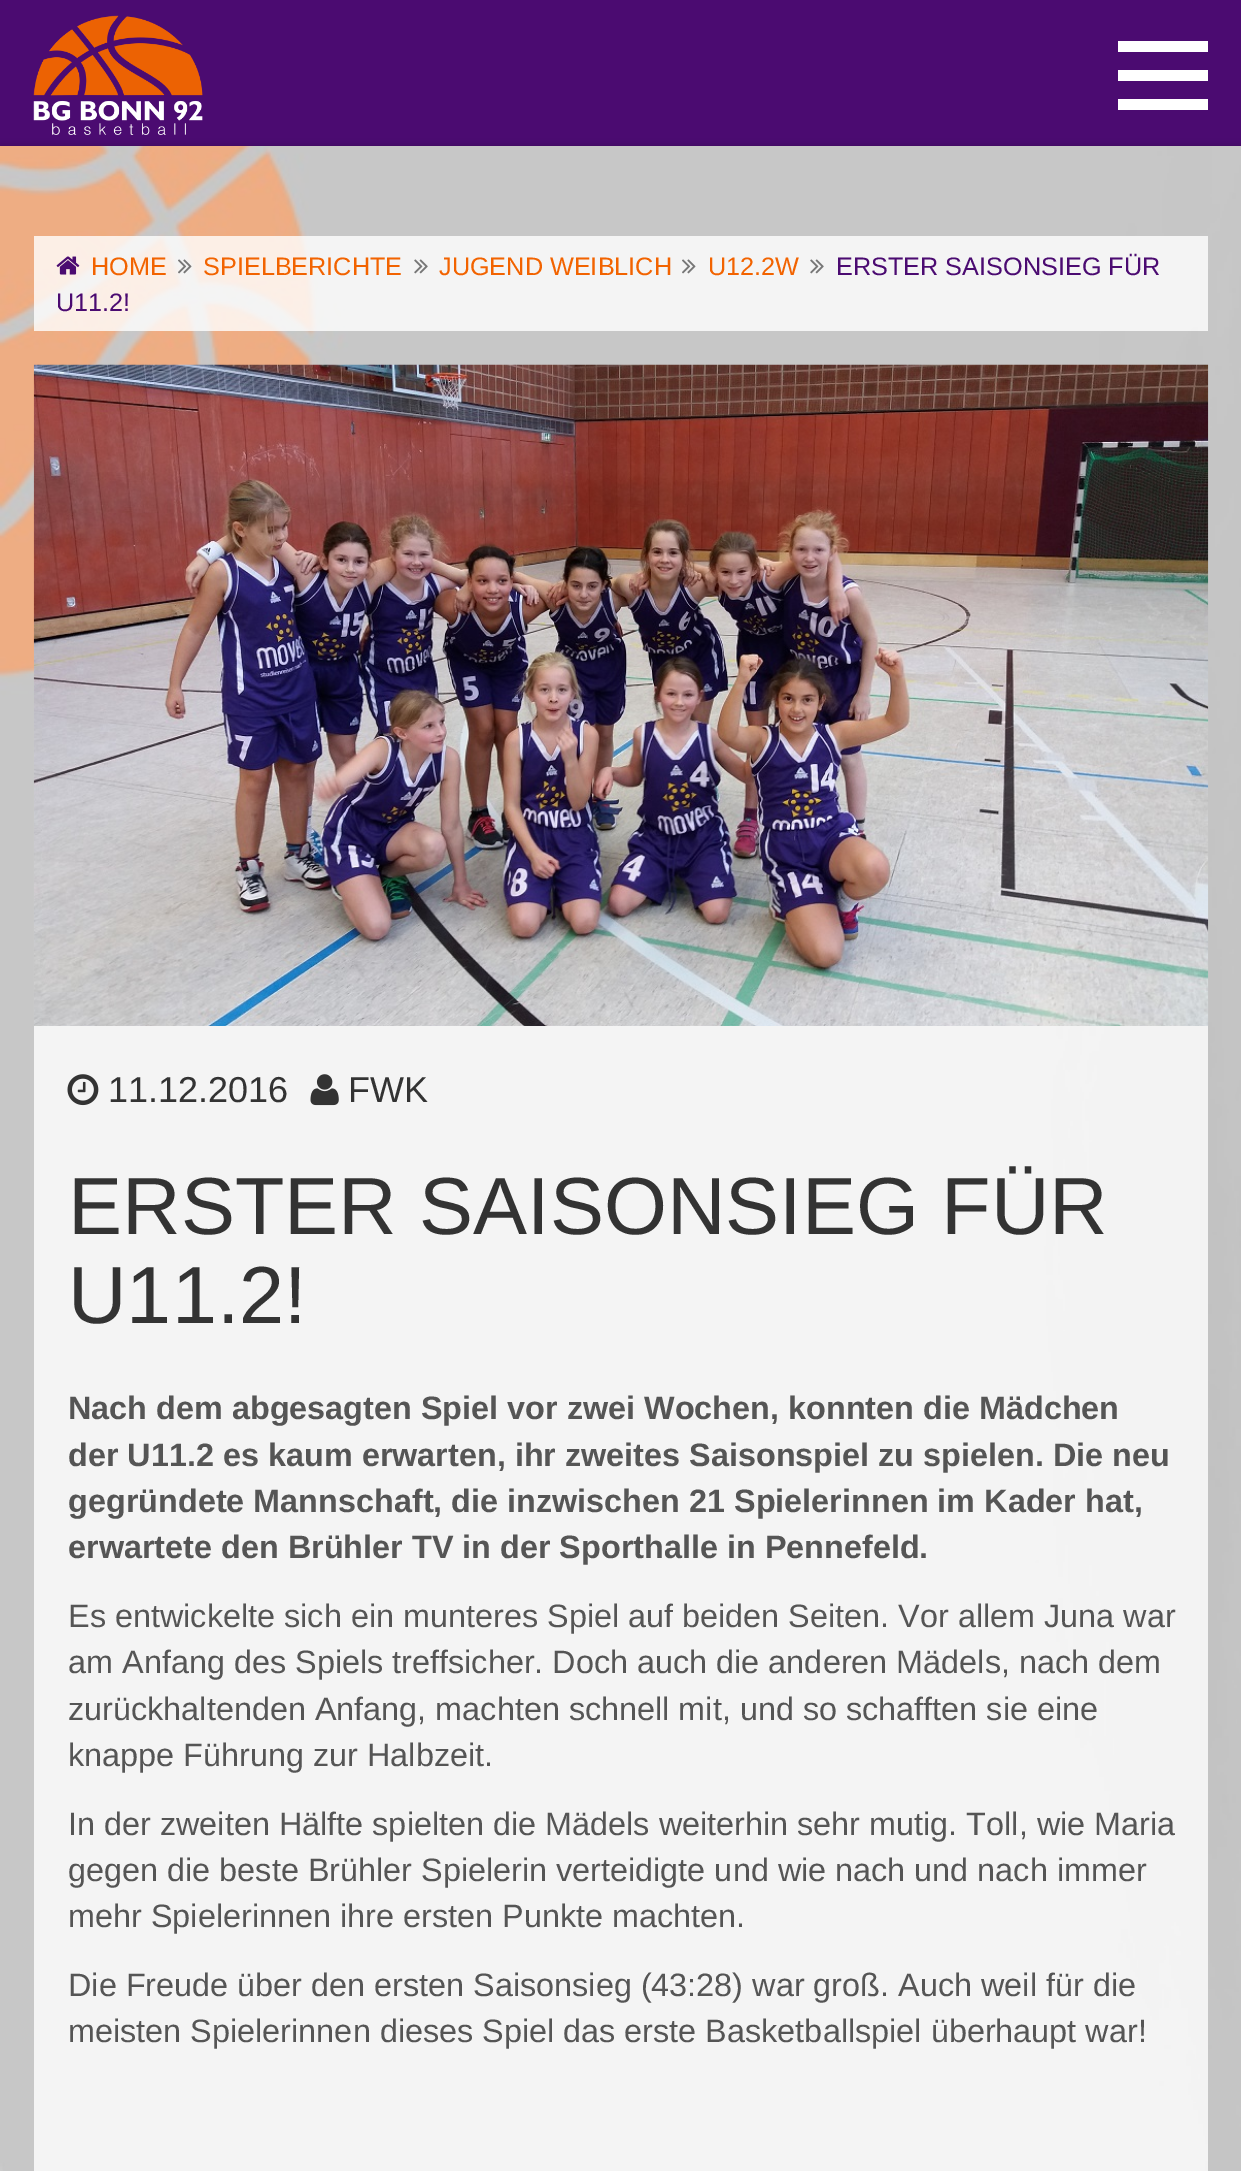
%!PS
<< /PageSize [1241 2171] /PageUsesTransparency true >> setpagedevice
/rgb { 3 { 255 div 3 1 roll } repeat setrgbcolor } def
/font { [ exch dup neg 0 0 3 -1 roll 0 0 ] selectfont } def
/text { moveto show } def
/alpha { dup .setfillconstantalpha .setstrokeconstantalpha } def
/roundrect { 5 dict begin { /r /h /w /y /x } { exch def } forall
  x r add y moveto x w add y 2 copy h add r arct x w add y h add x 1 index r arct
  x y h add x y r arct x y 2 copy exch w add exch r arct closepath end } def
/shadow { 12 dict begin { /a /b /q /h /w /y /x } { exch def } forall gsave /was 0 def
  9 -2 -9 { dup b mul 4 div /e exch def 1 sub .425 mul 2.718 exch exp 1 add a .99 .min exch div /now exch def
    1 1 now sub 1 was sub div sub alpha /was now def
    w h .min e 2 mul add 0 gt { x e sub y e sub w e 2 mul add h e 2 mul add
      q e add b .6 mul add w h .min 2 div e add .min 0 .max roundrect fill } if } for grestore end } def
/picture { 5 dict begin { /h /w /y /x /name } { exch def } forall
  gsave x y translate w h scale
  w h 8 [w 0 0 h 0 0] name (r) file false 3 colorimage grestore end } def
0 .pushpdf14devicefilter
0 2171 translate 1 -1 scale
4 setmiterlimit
255 255 255 rgb
0 0 1241 2171 rectfill
(img_01.rgb) 0 146 1241 2025 picture
75 11 113 rgb
0 0 1241 146 rectfill
(img_02.rgb) 33 15 170 120 picture
255 255 255 rgb
1118 41 90 11 rectfill
1118 70 90 11 rectfill
1118 99 90 11 rectfill
gsave
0 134 moveto 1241 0 rlineto 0 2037 rlineto -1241 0 rlineto closepath 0 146 moveto 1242 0 rlineto 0 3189 rlineto -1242 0 rlineto closepath eoclip newpath
0 0 0 rgb
0 146 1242 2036 0 3.5 0.2 shadow
grestore
0.4 alpha
0 146 1241 2025 rectfill
0.8 alpha
34 236 1174 95 rectfill
1 alpha
(img_03.rgb) 56 256 24 19 picture
(img_04.rgb) 178 259 14 15 picture
(img_05.rgb) 414 259 14 15 picture
(img_06.rgb) 682 259 14 15 picture
(img_05.rgb) 810 259 14 15 picture
0.8 alpha
34 1026 1174 1145 rectfill
1 alpha
(img_07.rgb) 33 364 1176 662 picture
(img_08.rgb) 67 1074 32 32 picture
(img_09.rgb) 310 1074 29 32 picture
/LiberationSans-Regular 25.25 font
242 99 0 rgb
(HOME) 91 275 text
(SPIELBERICHTE) 203 275 text
(JUGEND WEIBLICH) 439 275 text
(U12.2W) 708 275 text
75 11 113 rgb
(ERSTER SAISONSIEG FÜR) 836 275 text
(U11.2!) 56 311 text
/LiberationSans-Regular 36 font
51 51 51 rgb
(11.12.2016) 108 1102 text
(FWK) 348 1102 text
/LiberationSans-Regular 81 font
(ERSTER SAISONSIEG FÜR) 68 1234 text
(U11.2!) 68 1323 text
/LiberationSans-Bold 32.4 font
85 85 85 rgb
(Nach dem abgesagten Spiel vor zwei Wochen, konnten die Mädchen) 68 1419 text
(der U11.2 es kaum erwarten, ihr zweites Saisonspiel zu spielen. Die neu) 68 1466 text
(gegründete Mannschaft, die inzwischen 21 Spielerinnen im Kader hat,) 68 1512 text
(erwartete den Brühler TV in der Sporthalle in Pennefeld.) 68 1558 text
/LiberationSans-Regular 32.4 font
(Es entwickelte sich ein munteres Spiel auf beiden Seiten. Vor allem Juna war) 68 1627 text
(am Anfang des Spiels treffsicher. Doch auch die anderen Mädels, nach dem) 68 1673 text
(zurückhaltenden Anfang, machten schnell mit, und so schafften sie eine) 68 1720 text
(knappe Führung zur Halbzeit.) 68 1766 text
(In der zweiten Hälfte spielten die Mädels weiterhin sehr mutig. Toll, wie Maria) 68 1835 text
(gegen die beste Brühler Spielerin verteidigte und wie nach und nach immer) 68 1881 text
(mehr Spielerinnen ihre ersten Punkte machten.) 68 1927 text
(Die Freude über den ersten Saisonsieg \(43:28\) war groß. Auch weil für die) 68 1996 text
(meisten Spielerinnen dieses Spiel das erste Basketballspiel überhaupt war!) 68 2042 text
.poppdf14devicefilter showpage
